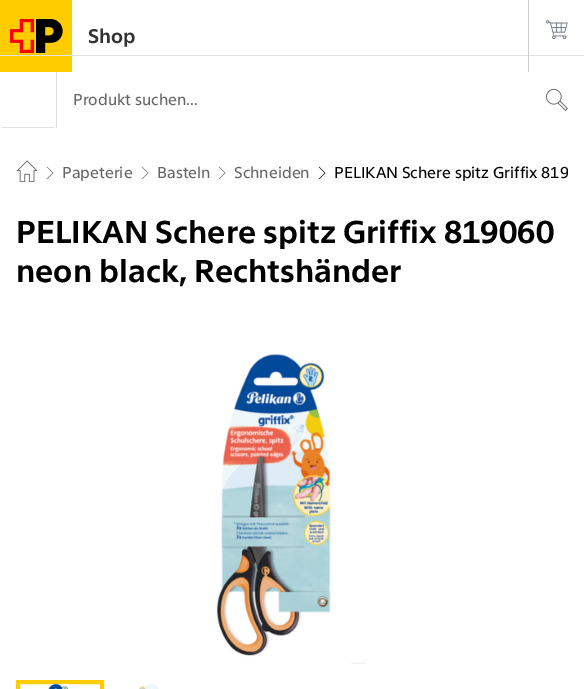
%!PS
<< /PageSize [584 689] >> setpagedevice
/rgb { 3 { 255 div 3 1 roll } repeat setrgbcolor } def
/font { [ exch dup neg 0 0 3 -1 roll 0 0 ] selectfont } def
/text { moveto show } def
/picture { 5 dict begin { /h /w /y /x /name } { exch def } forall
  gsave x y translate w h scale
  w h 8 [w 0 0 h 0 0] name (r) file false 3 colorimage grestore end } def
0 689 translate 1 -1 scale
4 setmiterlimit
255 255 255 rgb
0 0 584 689 rectfill
(img_01.rgb) 0 0 72 72 picture
222 226 230 rgb
0 55 584 1 rectfill
204 204 204 rgb
528 0 1 72 rectfill
(img_02.rgb) 546 20 22 19 picture
222 226 230 rgb
56 72 1 56 rectfill
(img_03.rgb) 546 88 22 23 picture
2 127 52 1 rectfill
(img_04.rgb) 16 160 22 22 picture
(img_05.rgb) 46 166 8 14 picture
(img_05.rgb) 141 166 8 14 picture
(img_05.rgb) 218 166 8 14 picture
(img_06.rgb) 318 166 8 14 picture
(img_07.rgb) 216 354 151 310 picture
255 204 0 rgb
4 setlinewidth
18 682 84 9 rectstroke
(img_08.rgb) 48 684 21 5 picture
(img_09.rgb) 139 684 20 5 picture
/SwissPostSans-Bold 20 font
51 51 51 rgb
(Shop) 88 43 text
/SwissPostSans-Regular 16 font
102 102 102 rgb
(Produkt suchen...) 73 105 text
(Papeterie) 62 178 text
(Basteln) 157 178 text
(Schneiden) 234 178 text
gsave
16 160 552 29 rectclip
0 0 0 rgb
(PELIKAN Schere spitz Griffix 819) 334 178 text
grestore
/SwissPostSans-Bold 32 font
0 0 0 rgb
(PELIKAN Schere spitz Griffix 819060) 16 243 text
(neon black, Rechtshänder) 16 282 text
showpage
